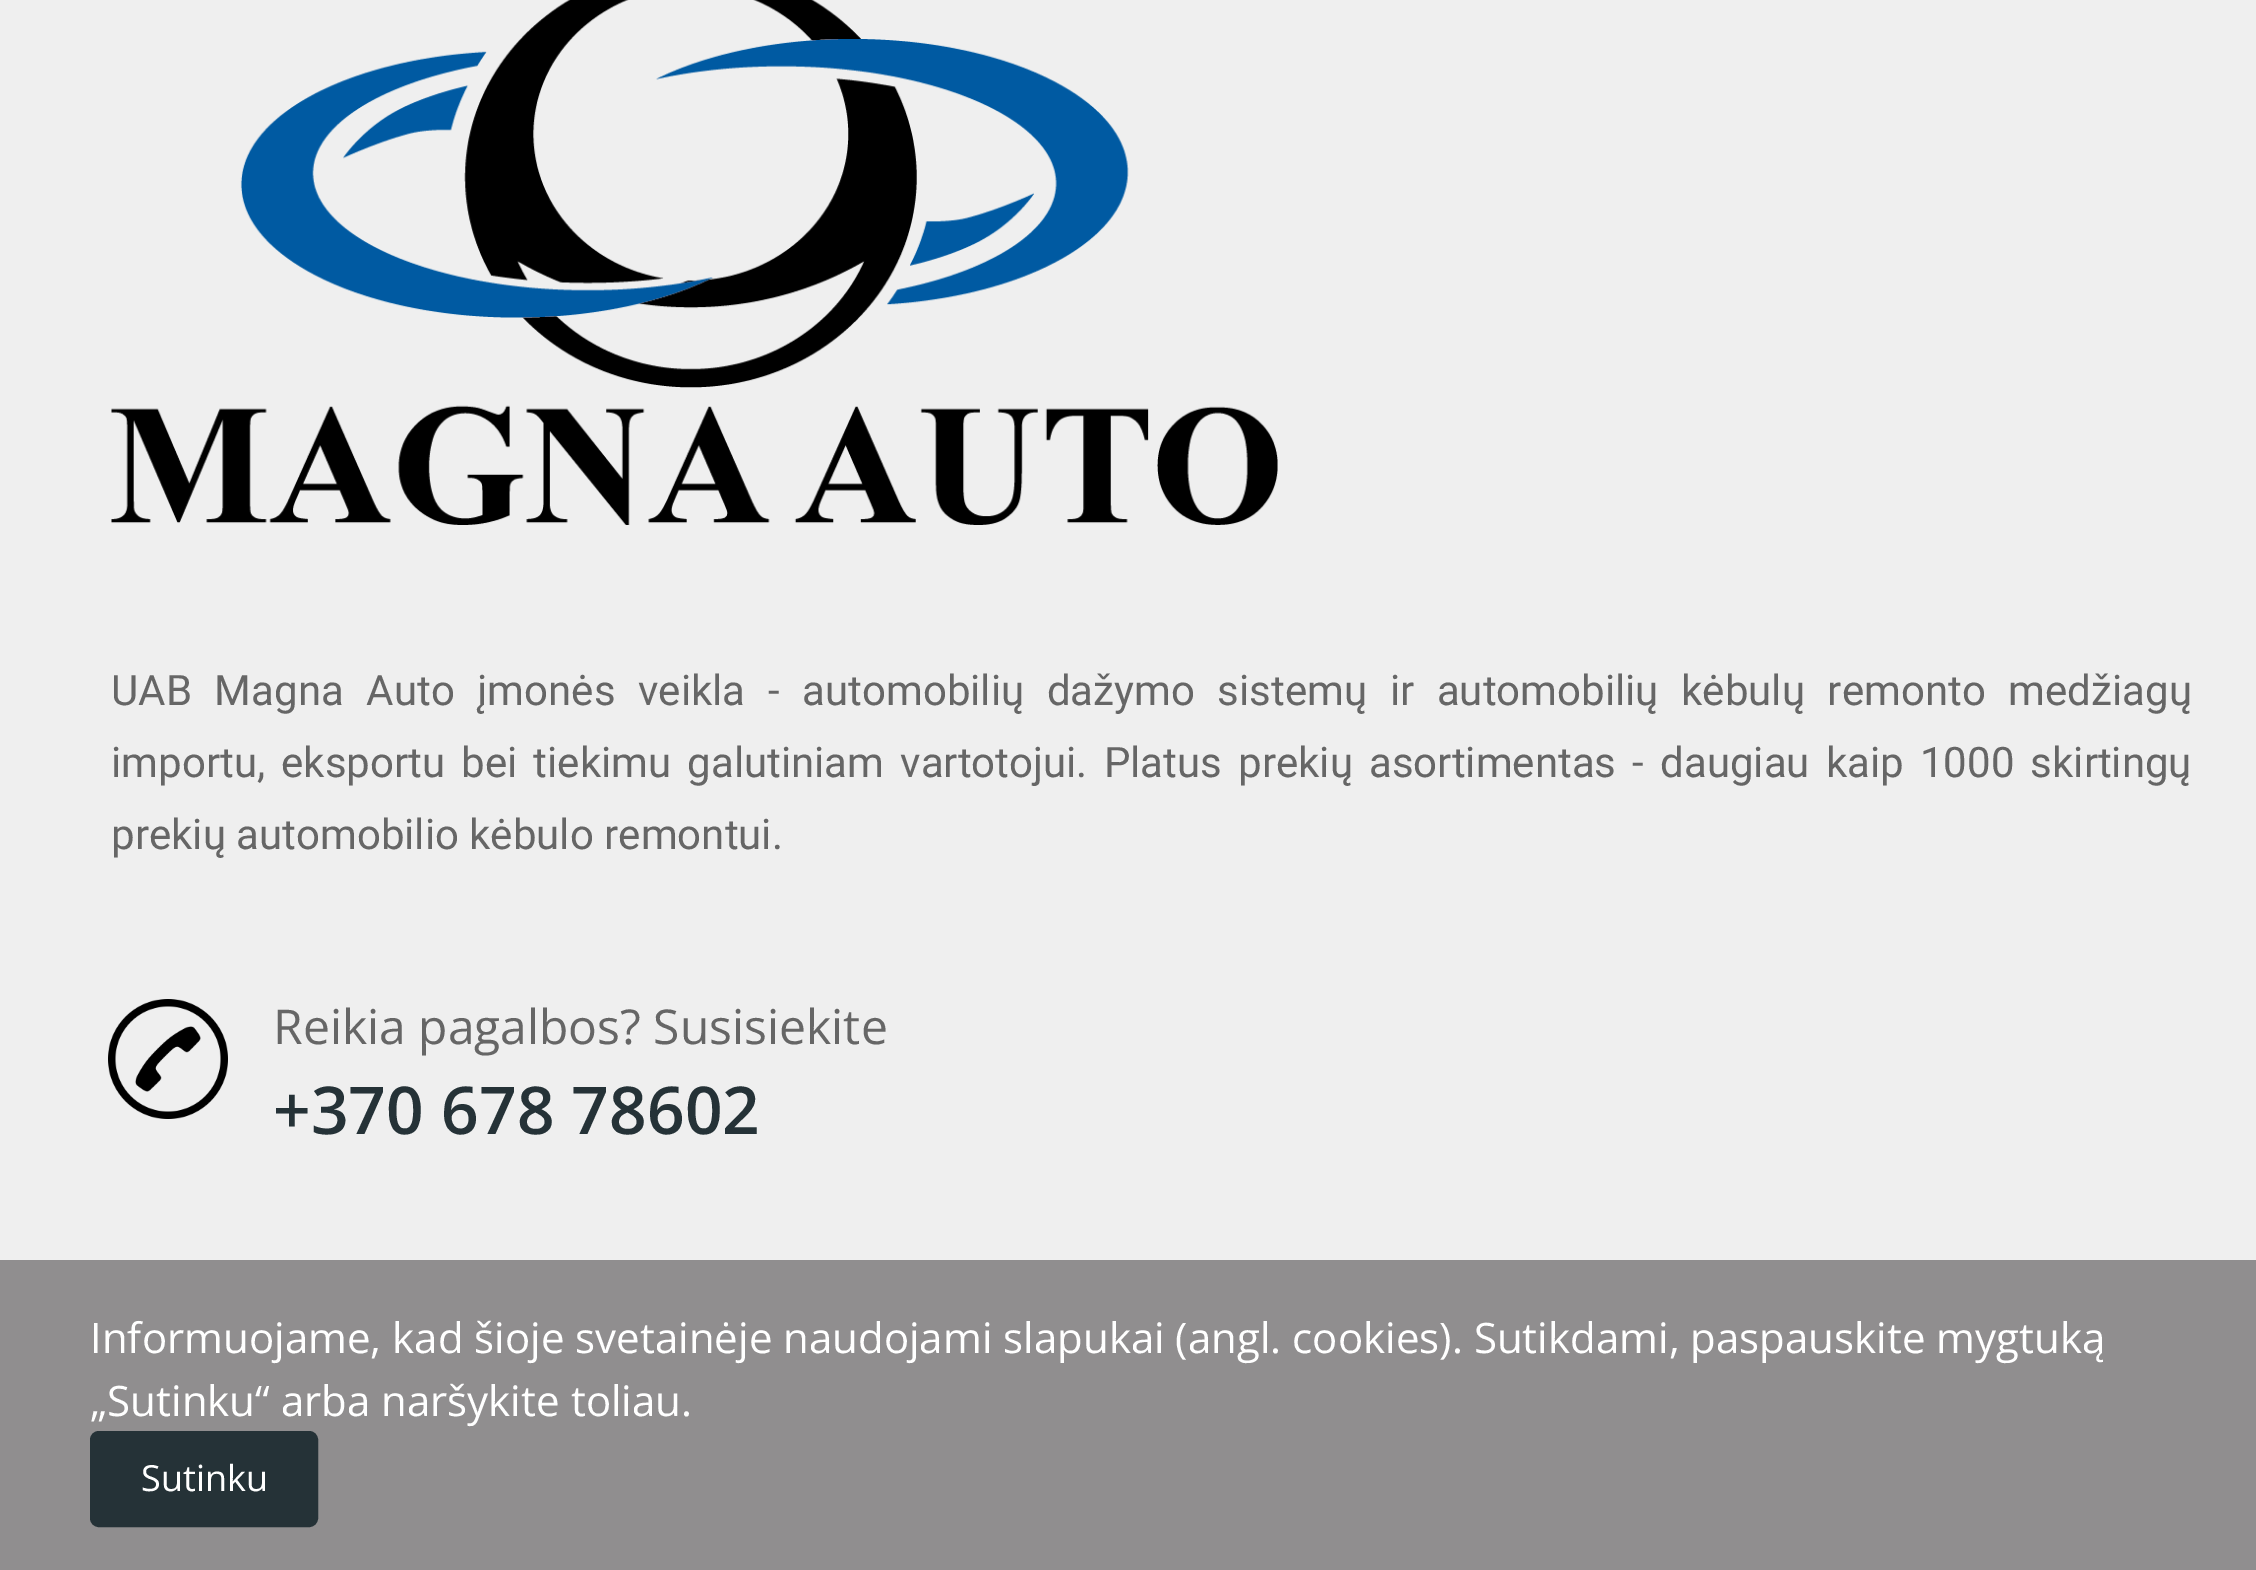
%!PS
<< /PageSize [2256 1570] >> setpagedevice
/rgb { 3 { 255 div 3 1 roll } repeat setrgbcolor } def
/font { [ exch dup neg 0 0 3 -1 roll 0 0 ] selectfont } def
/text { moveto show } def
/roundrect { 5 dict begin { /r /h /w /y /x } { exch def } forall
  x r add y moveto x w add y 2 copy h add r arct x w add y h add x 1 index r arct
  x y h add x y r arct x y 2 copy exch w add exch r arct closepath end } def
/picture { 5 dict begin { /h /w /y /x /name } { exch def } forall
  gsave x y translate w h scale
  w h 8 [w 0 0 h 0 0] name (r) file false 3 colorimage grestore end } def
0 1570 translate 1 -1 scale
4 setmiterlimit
239 239 239 rgb
0 0 2256 1570 rectfill
(img_01.rgb) 111 0 1167 525 picture
(img_02.rgb) 108 999 120 120 picture
144 142 143 rgb
0 1260 2256 310 rectfill
37 50 55 rgb
93 1434 222 90 6 roundrect gsave fill grestore
6 setlinewidth
stroke
/Roboto-Regular 42 font
102 102 102 rgb
111 705 moveto 12.25 0 32 (UAB Magna Auto įmonės veikla - automobilių dažymo sistemų ir automobilių kėbulų remonto medžiagų) widthshow
111 777 moveto 5.75 0 32 (importu, eksportu bei tiekimu galutiniam vartotojui. Platus prekių asortimentas - daugiau kaip 1000 skirtingų) widthshow
(prekių automobilio kėbulo remontui.) 111 849 text
/OpenSans-Regular 48 font
(Reikia pagalbos? Susisiekite) 273 1044 text
/OpenSans-SemiBold 66 font
37 50 55 rgb
(+370 678 78602) 273 1134 text
/OpenSans-Regular 42 font
255 255 255 rgb
(Informuojame, kad šioje svetainėje naudojami slapukai \(angl. cookies\). Sutikdami, paspauskite mygtuką) 90 1353 text
(„Sutinku“ arba naršykite toliau.) 90 1416 text
/OpenSans-Regular 36 font
(Sutinku) 141 1491 text
showpage
